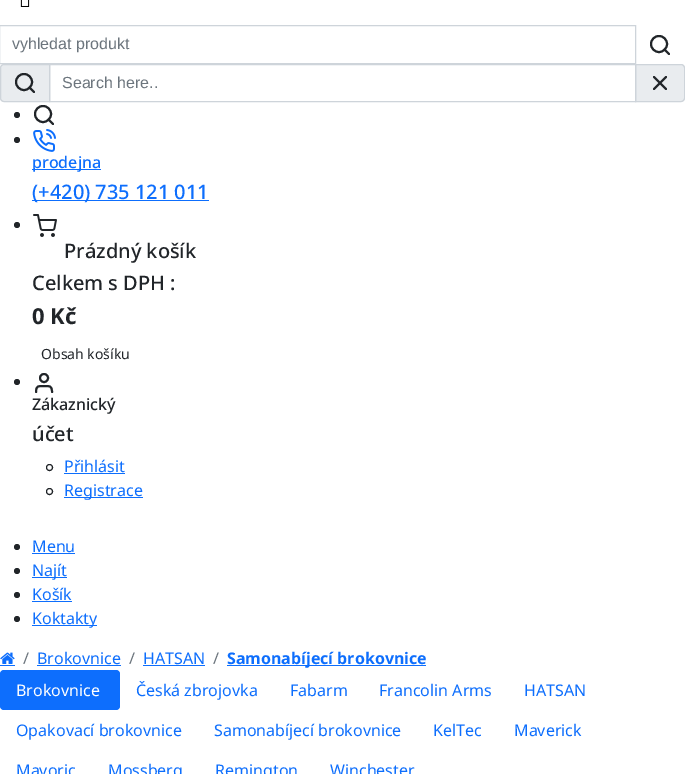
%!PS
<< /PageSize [685 774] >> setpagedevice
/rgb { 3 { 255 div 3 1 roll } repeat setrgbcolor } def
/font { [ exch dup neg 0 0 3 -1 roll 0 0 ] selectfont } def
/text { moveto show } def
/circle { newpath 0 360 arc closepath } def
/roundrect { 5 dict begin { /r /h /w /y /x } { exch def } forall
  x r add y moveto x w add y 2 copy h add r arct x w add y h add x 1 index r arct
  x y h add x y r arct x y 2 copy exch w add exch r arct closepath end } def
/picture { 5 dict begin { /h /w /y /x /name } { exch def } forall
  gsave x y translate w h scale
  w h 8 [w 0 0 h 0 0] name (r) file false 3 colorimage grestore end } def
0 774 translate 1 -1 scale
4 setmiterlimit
255 255 255 rgb
0 0 685 774 rectfill
(img_01.rgb) 20 0 10 7 picture
206 212 218 rgb
-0.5 25.5 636 38 rectstroke
33 37 41 rgb
2 setlinewidth
659 44 8 circle stroke
1 setlinecap
1 setlinejoin
669 54 moveto -4.5 -4.5 rlineto stroke
233 236 239 rgb
4 64.5 moveto 45.5 0 rlineto 0 37 rlineto -45.5 0 rlineto -2 0 -3.5 -1.5 -3.5 -3.5 rcurveto 0 -30 rlineto 0 -2 1.5 -3.5 3.5 -3.5 rcurveto closepath gsave fill grestore
206 212 218 rgb
1 setlinewidth
0 setlinecap
0 setlinejoin
stroke
33 37 41 rgb
2 setlinewidth
24 82 8 circle stroke
1 setlinecap
1 setlinejoin
34 92 moveto -4.5 -4.5 rlineto stroke
233 236 239 rgb
635.5 64.5 moveto 45.5 0 rlineto 2 0 3.5 1.5 3.5 3.5 rcurveto 0 30 rlineto 0 2 -1.5 3.5 -3.5 3.5 rcurveto -45.5 0 rlineto closepath gsave fill grestore
206 212 218 rgb
1 setlinewidth
0 setlinecap
0 setlinejoin
stroke
49.5 64.5 586 37 rectstroke
33 37 41 rgb
2 setlinewidth
1 setlinecap
1 setlinejoin
666 77 moveto -12 12 rlineto 654 77 moveto 12 12 rlineto stroke
17 115 3 circle fill
0 setlinecap
0 setlinejoin
43 114 8 circle stroke
1 setlinecap
1 setlinejoin
53 124 moveto -4.5 -4.5 rlineto stroke
17 140 3 circle fill
(img_02.rgb) 33 129 23 23 picture
13 110 253 rgb
32 169 69 1 rectfill
32 200 177 1 rectfill
33 37 41 rgb
17 225 3 circle fill
(img_03.rgb) 33 214 24 23 picture
17 382 3 circle fill
0 setlinecap
0 setlinejoin
44 378 4 circle stroke
1 setlinecap
1 setlinejoin
52 392 moveto 0 -6.5 -2.5 -6 -8 -6 rcurveto -5.5 0 -8 -0.5 -8 6 rcurveto stroke
1 setlinewidth
0 setlinecap
0 setlinejoin
49.5 467.5 3 circle stroke
13 110 253 rgb
64 473 61 1 rectfill
33 37 41 rgb
49.5 491.5 3 circle stroke
13 110 253 rgb
64 497 79 1 rectfill
33 37 41 rgb
17 547 3 circle fill
13 110 253 rgb
32 553 43 1 rectfill
33 37 41 rgb
17 571 3 circle fill
13 110 253 rgb
32 577 35 1 rectfill
33 37 41 rgb
17 595 3 circle fill
13 110 253 rgb
32 601 40 1 rectfill
33 37 41 rgb
17 619 3 circle fill
13 110 253 rgb
32 625 65 1 rectfill
0 665 15 1 rectfill
(img_04.rgb) 0 652 15 12 picture
37 665 84 1 rectfill
143 665 62 1 rectfill
227 665 199 1 rectfill
0 670 120 40 4 roundrect fill
/LiberationSans-Regular 16 font
108 117 125 rgb
(vyhledat produkt) 12 49 text
(Search here..) 62 88 text
/NotoSans-Medium 16 font
13 110 253 rgb
(prodejna) 32 168 text
/NotoSans-Medium 20 font
(\(+420\) 735 121 011) 32 199 text
33 37 41 rgb
(Prázdný košík) 64 258 text
(Celkem s DPH :) 32 290 text
/NotoSans-Bold 22 font
(0 Kč) 32 324 text
/NotoSans-Regular 14 font
(Obsah košíku) 41 359 text
/NotoSans-Medium 16 font
(Zákaznický) 32 410 text
/NotoSans-Medium 20 font
(účet) 32 441 text
/NotoSans-Regular 16 font
13 110 253 rgb
(Přihlásit) 64 472 text
(Registrace) 64 496 text
(Menu) 32 552 text
(Najít) 32 576 text
(Košík) 32 600 text
(Koktakty) 32 624 text
108 117 125 rgb
(/) 23 664 text
13 110 253 rgb
(Brokovnice) 37 664 text
108 117 125 rgb
(/) 129 664 text
13 110 253 rgb
(HATSAN) 143 664 text
108 117 125 rgb
(/) 213 664 text
/NotoSans-Bold 16 font
13 110 253 rgb
(Samonabíjecí brokovnice) 227 664 text
/NotoSans-Regular 16 font
255 255 255 rgb
(Brokovnice) 16 696 text
13 110 253 rgb
(Česká zbrojovka) 136 696 text
(Fabarm) 290 696 text
(Francolin Arms) 379 696 text
(HATSAN) 524 696 text
(Opakovací brokovnice) 16 736 text
(Samonabíjecí brokovnice) 214 736 text
(KelTec) 433 736 text
(Maverick) 514 736 text
(Mavoric) 16 776 text
(Mossberg) 108 776 text
(Remington) 215 776 text
(Winchester) 330 776 text
showpage
